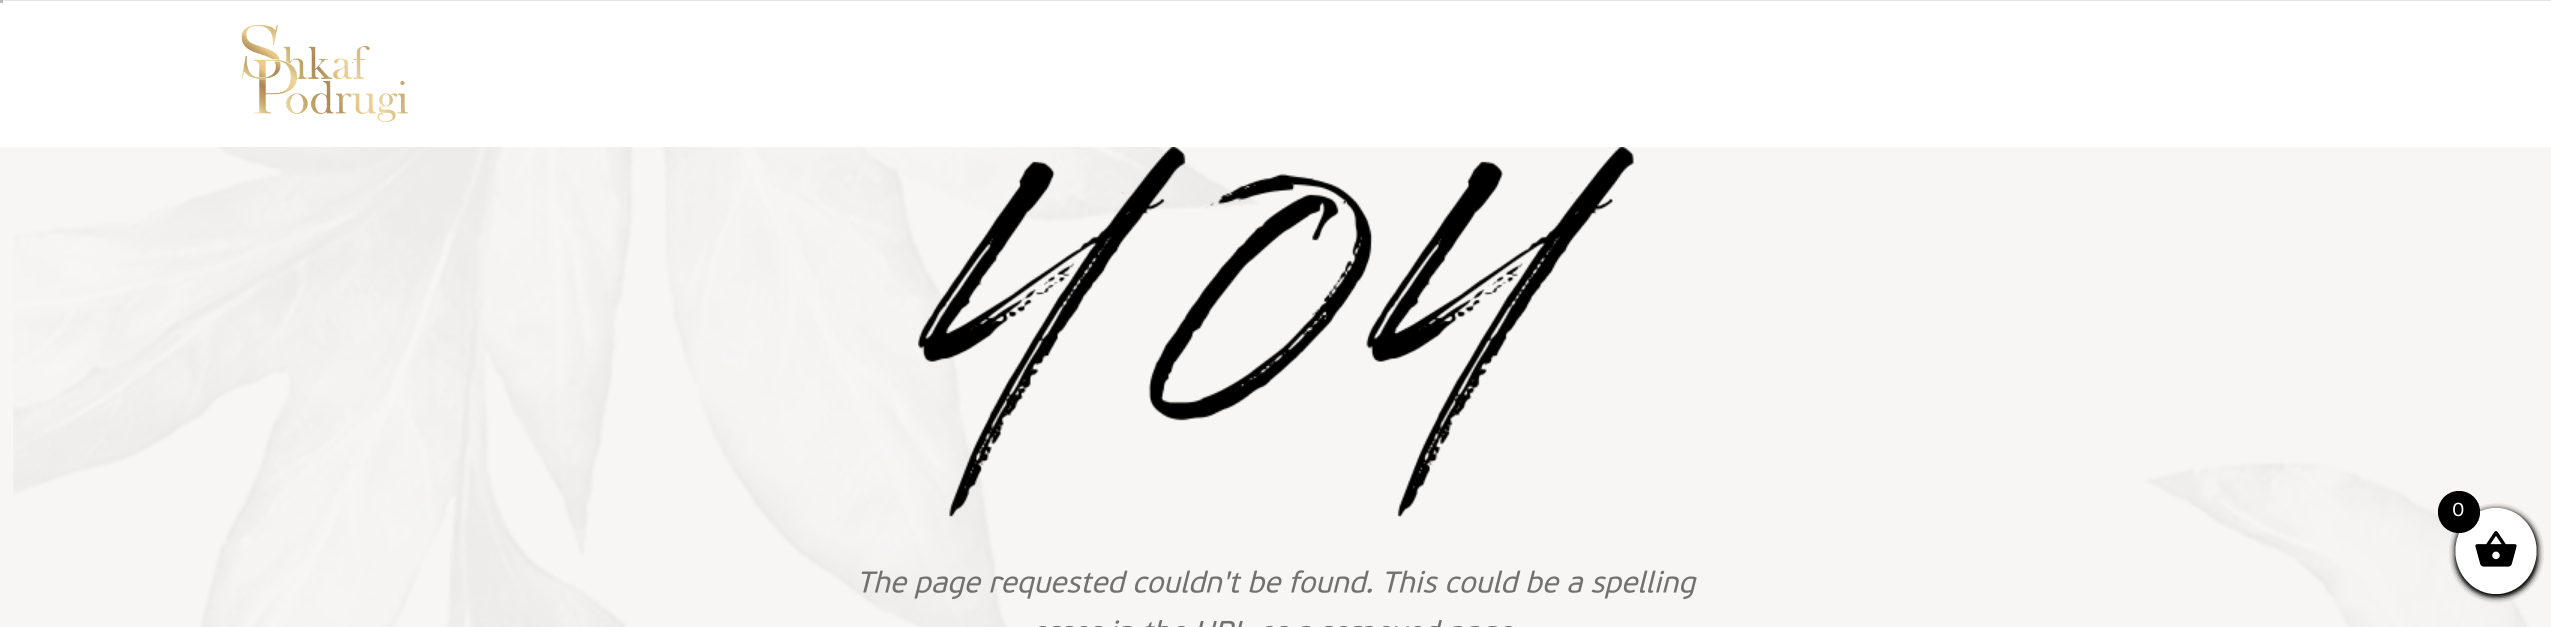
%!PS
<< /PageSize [2551 627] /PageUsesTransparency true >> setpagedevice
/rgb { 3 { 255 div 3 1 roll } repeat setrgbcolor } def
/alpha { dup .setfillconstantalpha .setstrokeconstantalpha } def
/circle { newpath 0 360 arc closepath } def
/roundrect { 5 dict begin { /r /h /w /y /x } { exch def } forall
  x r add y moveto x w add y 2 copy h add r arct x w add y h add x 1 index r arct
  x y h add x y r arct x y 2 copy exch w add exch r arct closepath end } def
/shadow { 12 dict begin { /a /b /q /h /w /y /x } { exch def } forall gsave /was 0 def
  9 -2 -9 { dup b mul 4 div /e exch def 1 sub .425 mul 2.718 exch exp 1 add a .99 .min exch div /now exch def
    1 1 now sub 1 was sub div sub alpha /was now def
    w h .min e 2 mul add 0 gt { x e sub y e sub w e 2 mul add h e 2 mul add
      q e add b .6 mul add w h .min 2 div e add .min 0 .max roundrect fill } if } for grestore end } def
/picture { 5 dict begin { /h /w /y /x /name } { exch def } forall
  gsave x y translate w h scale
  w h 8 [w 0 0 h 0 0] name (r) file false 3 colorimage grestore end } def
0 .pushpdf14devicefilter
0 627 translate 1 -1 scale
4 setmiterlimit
255 255 255 rgb
0 0 2551 627 rectfill
230 230 230 rgb
0 0 2551 1 rectfill
(img_01.rgb) 241 24 167 99 picture
(img_02.rgb) 0 147 2551 480 picture
(img_03.rgb) 918 147 716 370 picture
(img_04.rgb) 861 570 836 30 picture
(img_05.rgb) 1039 625 64 2 picture
(img_06.rgb) 1114 620 399 7 picture
186 186 186 rgb
0 0 3 3 rectfill
0 0 0 rgb
2456 510 81 86 40.5 3 1 shadow
2456 510 81 86 40.5 3 1 shadow
255 255 255 rgb
2496 508 moveto 22.5 0 40.5 19.5 40.5 43 rcurveto 0 23.5 -18 43 -40.5 43 rcurveto -22.5 0 -40.5 -19.5 -40.5 -43 rcurveto 0 -23.5 18 -43 40.5 -43 rcurveto closepath fill
0 0 0 rgb
2459 512 21 circle fill
(img_07.rgb) 2453 502 11 15 picture
(img_08.rgb) 2475 531 42 36 picture
.poppdf14devicefilter showpage
